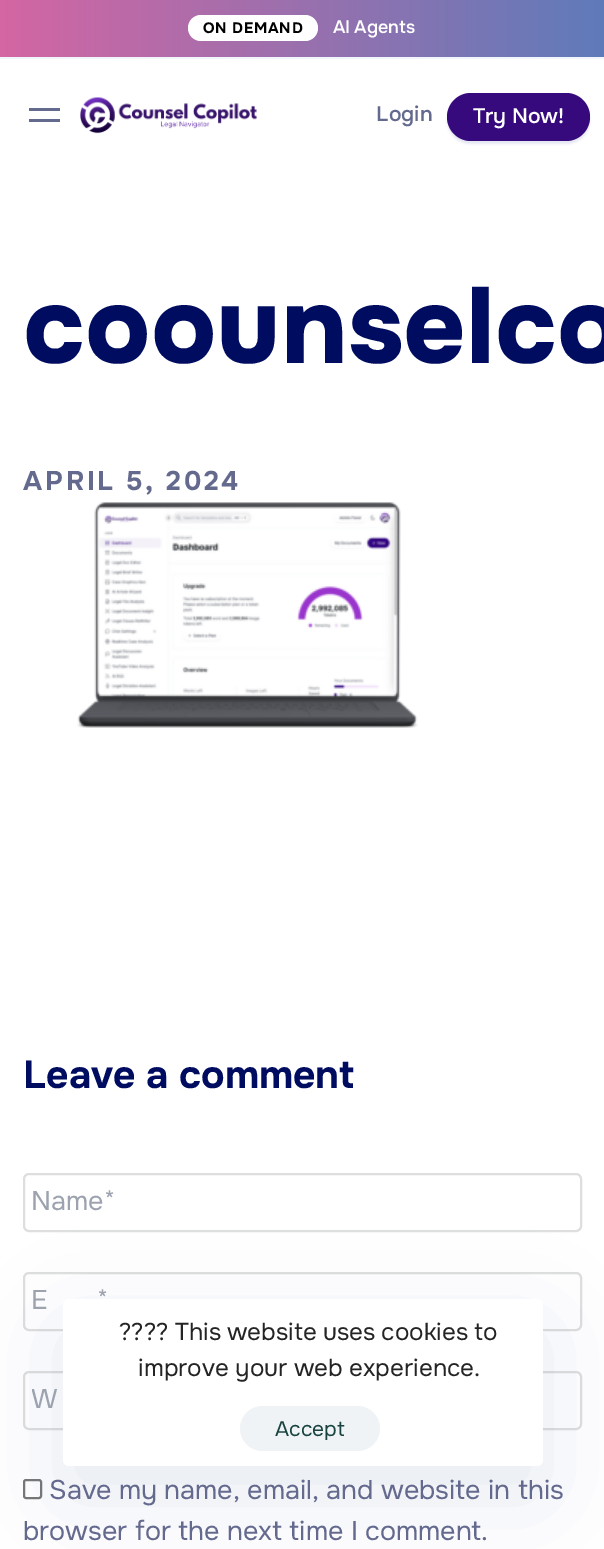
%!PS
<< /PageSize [604 1549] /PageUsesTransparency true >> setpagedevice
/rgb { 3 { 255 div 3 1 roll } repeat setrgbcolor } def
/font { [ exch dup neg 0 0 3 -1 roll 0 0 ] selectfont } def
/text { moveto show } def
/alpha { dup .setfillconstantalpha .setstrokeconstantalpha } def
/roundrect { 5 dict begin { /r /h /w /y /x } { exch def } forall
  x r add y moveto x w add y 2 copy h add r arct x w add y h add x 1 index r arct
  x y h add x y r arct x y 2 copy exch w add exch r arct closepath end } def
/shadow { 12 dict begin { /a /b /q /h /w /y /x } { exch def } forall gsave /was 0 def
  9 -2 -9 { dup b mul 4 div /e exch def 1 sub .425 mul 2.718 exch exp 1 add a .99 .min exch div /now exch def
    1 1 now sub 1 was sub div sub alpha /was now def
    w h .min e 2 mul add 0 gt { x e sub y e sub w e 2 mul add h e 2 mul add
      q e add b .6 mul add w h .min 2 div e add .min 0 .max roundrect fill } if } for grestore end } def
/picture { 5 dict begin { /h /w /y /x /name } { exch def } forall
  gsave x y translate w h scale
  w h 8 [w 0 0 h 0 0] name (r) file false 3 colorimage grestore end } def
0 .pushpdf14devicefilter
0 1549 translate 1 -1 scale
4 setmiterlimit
255 255 255 rgb
0 0 604 1549 rectfill
gsave 0 0 moveto 604 0 rlineto 0 57 rlineto -604 0 rlineto closepath clip newpath
<< /ShadingType 2 /ColorSpace /DeviceRGB /Coords [0 29 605 28] /Extend [true true] /Function << /FunctionType 2 /Domain [0 1] /C0 [0.831 0.4 0.639] /C1 [0.373 0.482 0.729] /N 1 >> >> shfill grestore
241 246 252 rgb
0 57 604 2 rectfill
255 255 255 rgb
188 15 130 26 13 roundrect fill
100 105 142 rgb
29 108 31 3 rectfill
29 119 31 3 rectfill
(img_01.rgb) 80 97 177 37 picture
75 99 147 rgb
447 96 143 48 24 1 0.14 shadow
54 10 125 rgb
447 93 143 48 24 roundrect fill
(img_02.rgb) 77 502 341 226 picture
222 222 222 rgb
2 setlinewidth
24 1174 557 57 5 roundrect stroke
24 1273 557 57 5 roundrect stroke
24 1372 557 57 5 roundrect stroke
118 118 118 rgb
24 1480 17 18 2 roundrect stroke
92 107 149 rgb
63 1329 480 167 6 45 0.15 shadow
255 255 255 rgb
63 1299 480 167 6 roundrect fill
239 243 245 rgb
240 1406 140 45 22.5 roundrect fill
/Onest-Bold 15 font
0 0 0 rgb
203 33 moveto 0.75 0 (ON DEMAND) ashow
/Onest-Medium 18 font
255 255 255 rgb
333 33 moveto -1 0 32 (AI Agents) widthshow
/Onest-Medium 21 font
100 105 142 rgb
(Login) 376 121 text
255 255 255 rgb
(Try Now!) 473 123 text
/Onest-ExtraBold 108 font
0 12 96 rgb
(coounselco) 23 363 text
/Onest-Bold 27 font
100 105 142 rgb
23 490 moveto 2.75 0 (APRIL 5, 2024) ashow
/Onest-Bold 39 font
0 12 96 rgb
(Leave a comment) 23 1088 text
/Onest-Regular 27 font
156 163 175 rgb
(Name*) 31 1210 text
(E) 31 1309 text
(*) 97 1309 text
gsave
32 1383 543 33 rectclip
(W) 31 1408 text
grestore
100 105 142 rgb
(Save my name, email, and website in this) 49 1499 text
(browser for the next time I comment.) 23 1540 text
/Onest-Regular 24.25 font
36 36 36 rgb
119 1340 moveto -0.5 0 32 (???? This website uses cookies to) widthshow
(improve your web experience.) 138 1376 text
/Onest-Regular 21 font
24 67 65 rgb
(Accept) 275 1436 text
.poppdf14devicefilter showpage
